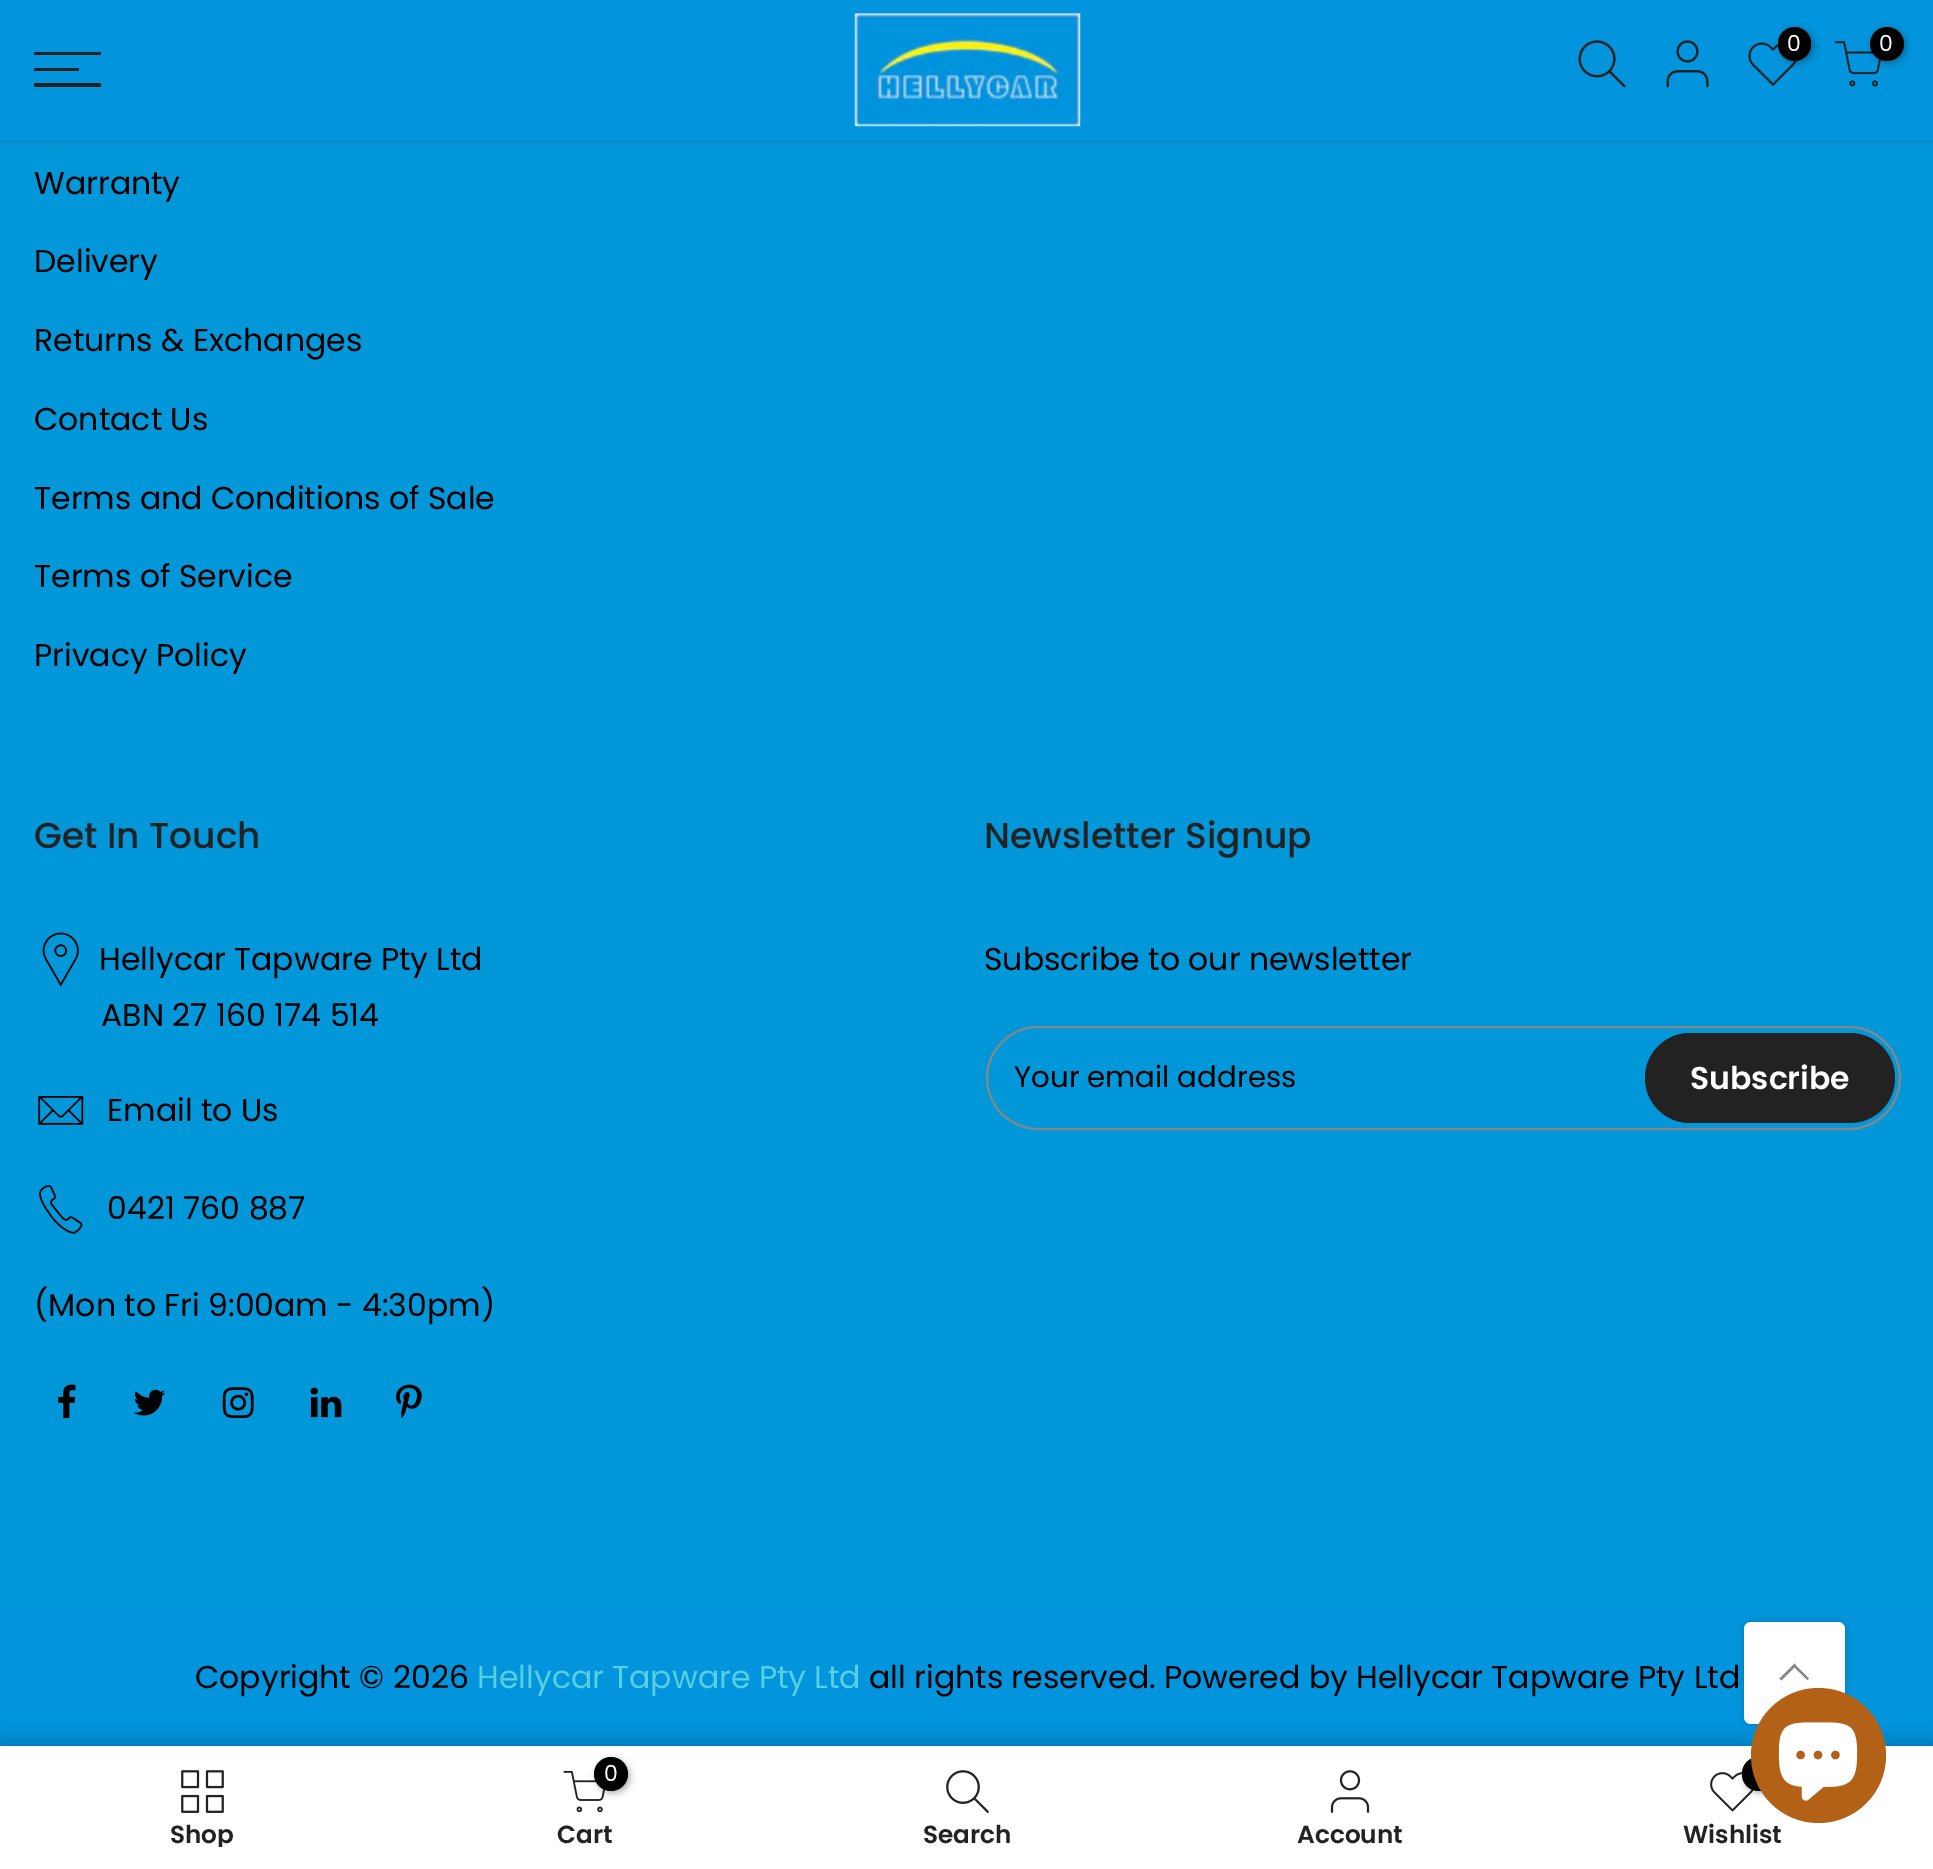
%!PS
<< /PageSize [1933 1869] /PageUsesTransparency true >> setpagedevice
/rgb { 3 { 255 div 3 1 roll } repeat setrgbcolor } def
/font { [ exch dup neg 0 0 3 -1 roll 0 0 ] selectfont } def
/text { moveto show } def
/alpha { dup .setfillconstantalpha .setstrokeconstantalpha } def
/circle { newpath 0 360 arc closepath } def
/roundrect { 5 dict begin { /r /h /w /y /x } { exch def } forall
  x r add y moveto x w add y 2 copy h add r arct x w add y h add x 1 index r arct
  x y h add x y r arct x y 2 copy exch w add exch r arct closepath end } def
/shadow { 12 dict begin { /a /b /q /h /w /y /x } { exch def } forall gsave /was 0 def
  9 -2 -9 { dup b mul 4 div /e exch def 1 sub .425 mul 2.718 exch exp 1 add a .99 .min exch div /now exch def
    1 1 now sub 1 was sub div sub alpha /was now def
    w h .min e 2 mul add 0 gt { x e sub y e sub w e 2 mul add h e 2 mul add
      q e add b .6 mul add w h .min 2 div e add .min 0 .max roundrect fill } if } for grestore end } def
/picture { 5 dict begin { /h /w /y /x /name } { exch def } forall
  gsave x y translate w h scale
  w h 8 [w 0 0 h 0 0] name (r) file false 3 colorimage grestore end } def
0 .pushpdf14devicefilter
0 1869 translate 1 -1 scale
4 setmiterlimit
2 148 220 rgb
0 0 1933 1869 rectfill
2 151 216 rgb
0 140 1933 1469 rectfill
0 0 0 rgb
0 2 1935 140 0 3.5 0.1 shadow
2 148 220 rgb
0 0 1933 140 rectfill
(img_01.rgb) 854 13 227 114 picture
(img_02.rgb) 1578 40 48 48 picture
(img_03.rgb) 1666 40 43 48 picture
(img_04.rgb) 1748 42 49 44 picture
0 0 0 rgb
1780 29 34 34 17 3.5 0.3 shadow
1778 27 33 34 16.5 roundrect fill
(img_05.rgb) 1834 41 47 46 picture
1872 29 34 34 17 3.5 0.3 shadow
1887 44 17 circle fill
34 34 34 rgb
34 52 67 3 rectfill
34 68 45 3 rectfill
34 83 67 4 rectfill
(img_06.rgb) 42 932 37 55 picture
(img_07.rgb) 38 1096 46 29 picture
(img_08.rgb) 39 1185 44 49 picture
(img_09.rgb) 58 1384 18 35 picture
(img_10.rgb) 133 1389 32 27 picture
(img_11.rgb) 222 1387 32 32 picture
(img_12.rgb) 310 1387 32 31 picture
(img_13.rgb) 396 1384 26 34 picture
135 135 135 rgb
2 setlinewidth
987 1027 913 102 51 roundrect stroke
34 34 34 rgb
1645 1033 250 90 45 roundrect fill
0 0 0 rgb
1744 1622 101 102 7 3.5 0.2 shadow
255 255 255 rgb
1744 1622 101 102 7 roundrect fill
135 135 135 rgb
1796 1665.5 moveto -1.5 -2 rlineto -15 15 rlineto 2 2 rlineto 13 -13 rlineto 13 12.5 rlineto 1.5 -1.5 rlineto closepath fill
0 0 0 rgb
0 1746 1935 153 0 10 0.12 shadow
0 1746 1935 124 0 10 0.12 shadow
255 255 255 rgb
0 1746 1933 123 rectfill
(img_19.rgb) 1710 1772 44 40 picture
0 0 0 rgb
1744 1760 34 33 16.5 3.5 0.3 shadow
1742 1757 33 34 16.5 roundrect fill
178 97 23 rgb
1818.5 1755.5 67.5 circle fill
(img_14.rgb) 1778 1722 80 79 picture
(img_15.rgb) 181 1770 43 43 picture
(img_16.rgb) 563 1770 43 43 picture
0 0 0 rgb
596 1760 34 33 16.5 3.5 0.3 shadow
611 1774 17 circle fill
(img_17.rgb) 946 1770 43 43 picture
(img_18.rgb) 1330 1770 40 43 picture
/Poppins-Regular 22 font
255 255 255 rgb
(0) 1787 51 text
(0) 1879 51 text
/Poppins-Regular 31.5 font
0 0 0 rgb
(Warranty) 34 194 text
(Delivery) 34 272 text
(Returns & Exchanges) 34 351 text
(Contact Us) 34 430 text
(Terms and Conditions of Sale) 34 509 text
(Terms of Service) 34 587 text
(Privacy Policy) 34 666 text
/Poppins-Medium 36 font
34 34 34 rgb
(Get In Touch) 34 848 text
/Poppins-Regular 31.5 font
0 0 0 rgb
(Hellycar Tapware Pty Ltd) 99 970 text
(ABN 27 160 174 514) 101 1026 text
(Email to Us) 107 1121 text
(0421 760 887) 107 1219 text
(\(Mon to Fri 9:00am - 4:30pm\)) 34 1316 text
/Poppins-Medium 36 font
34 34 34 rgb
(Newsletter Signup) 984 848 text
/Poppins-Regular 31.5 font
0 0 0 rgb
(Subscribe to our newsletter) 984 970 text
/Poppins-Regular 29.25 font
(Your email address) 1014 1087 text
/Poppins-SemiBold 31.5 font
255 255 255 rgb
(Subscribe) 1690 1089 text
/Poppins-Regular 31.5 font
0 0 0 rgb
(Copyright © 2026) 195 1688 text
86 207 225 rgb
(Hellycar Tapware Pty Ltd) 477 1688 text
0 0 0 rgb
(all rights reserved. Powered by Hellycar Tapware Pty Ltd) 869 1688 text
gsave
34 1823 337 24 rectclip
/Poppins-SemiBold 24.75 font
34 34 34 rgb
(Shop) 170 1843 text
grestore
/Poppins-Regular 22 font
255 255 255 rgb
(0) 604 1781 text
/Poppins-SemiBold 24.75 font
34 34 34 rgb
(Cart) 557 1843 text
(Search) 923 1843 text
(Account) 1297 1843 text
(Wishlist) 1683 1843 text
.poppdf14devicefilter showpage
